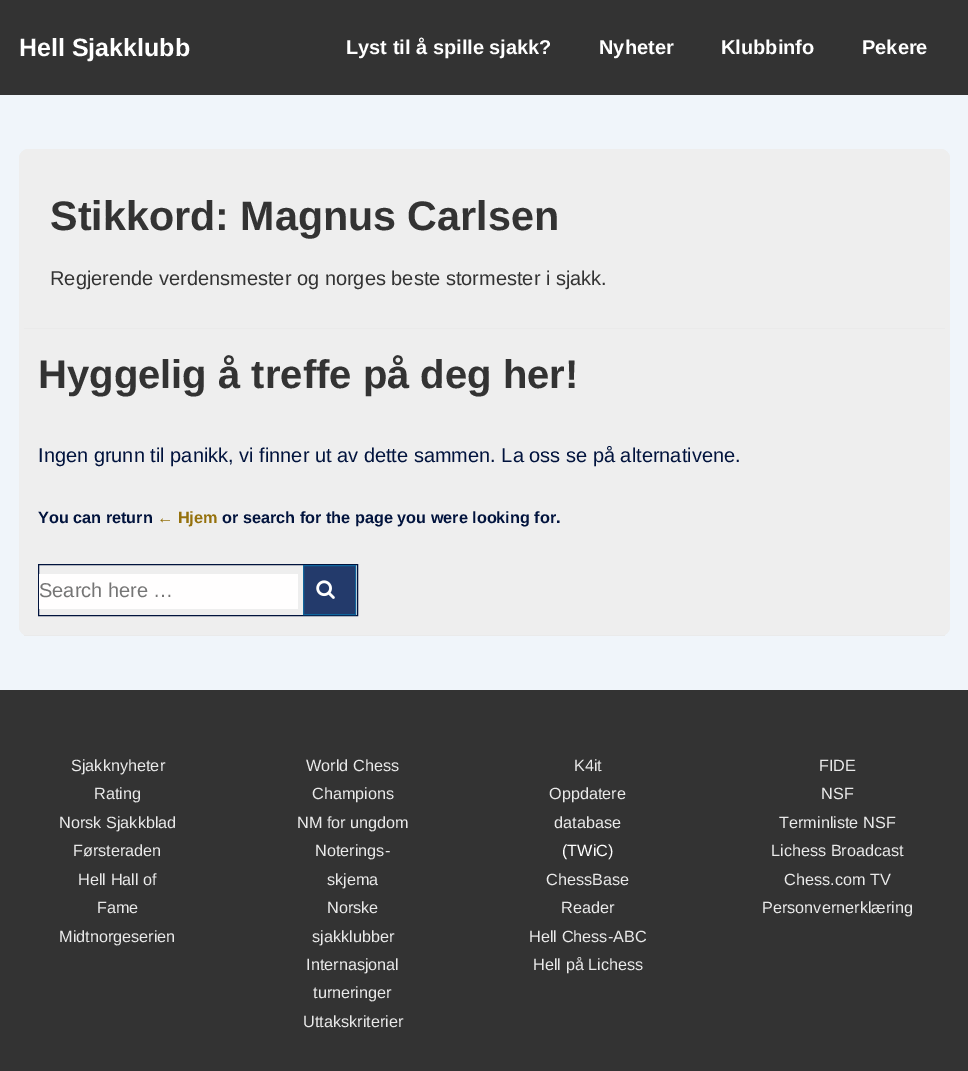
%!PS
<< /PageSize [968 1071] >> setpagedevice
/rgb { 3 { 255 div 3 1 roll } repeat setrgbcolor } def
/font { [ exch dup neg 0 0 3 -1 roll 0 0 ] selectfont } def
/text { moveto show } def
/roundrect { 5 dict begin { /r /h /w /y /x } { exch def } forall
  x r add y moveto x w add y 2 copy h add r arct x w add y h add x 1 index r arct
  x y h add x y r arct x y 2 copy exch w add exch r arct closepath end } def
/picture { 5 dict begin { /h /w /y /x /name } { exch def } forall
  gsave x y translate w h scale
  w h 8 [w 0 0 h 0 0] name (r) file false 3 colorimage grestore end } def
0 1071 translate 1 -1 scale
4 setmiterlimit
240 245 250 rgb
0 0 968 1071 rectfill
51 51 51 rgb
0 0 968 95 rectfill
238 238 238 rgb
19 149 931 487 10 roundrect fill
19 149 931 180 10 roundrect fill
234 234 234 rgb
24 328 921 1 rectfill
238 238 238 rgb
19 329 931 307 10 roundrect fill
234 234 234 rgb
24 635 921 1 rectfill
1 19 61 rgb
38.5 564.5 319 51 rectstroke
255 254 254 rgb
39 574 259 35 rectfill
35 58 107 rgb
303.5 565.5 moveto 52 0 rlineto 0 49 rlineto -52 0 rlineto closepath gsave fill grestore
16 101 156 rgb
stroke
(img_01.rgb) 316 580 19 19 picture
51 51 51 rgb
0 690 968 381 rectfill
/LiberationSans-Bold 25 font
255 255 255 rgb
(Hell Sjakklubb) 19 56 text
/LiberationSans-Bold 20 font
(Lyst til å spille sjakk?) 346 54 text
(Nyheter) 599 54 text
(Klubbinfo) 721 54 text
(Pekere) 862 54 text
/LiberationSans-Bold 41.25 font
51 51 51 rgb
(Stikkord: Magnus Carlsen) 50 230 text
/LiberationSans-Regular 20 font
(Regjerende verdensmester og norges beste stormester i sjakk.) 50 285 text
/LiberationSans-Bold 40 font
(Hyggelig å treffe på deg her!) 38 388 text
/LiberationSans-Regular 20 font
1 19 61 rgb
(Ingen grunn til panikk, vi finner ut av dette sammen. La oss se på alternativene.) 38 462 text
/LiberationSans-Bold 16.25 font
(You can return) 38 523 text
149 113 12 rgb
(← Hjem) 157 523 text
1 19 61 rgb
(or search for the page you were looking for.) 222 523 text
/LiberationSans-Regular 20 font
117 117 117 rgb
(Search here …) 39 597 text
/LiberationSans-Regular 16.25 font
234 234 234 rgb
(Sjakknyheter) 71 771 text
(Rating) 94 799 text
(Norsk Sjakkblad) 59 828 text
(Førsteraden) 73 856 text
(Hell Hall of) 78 885 text
(Fame) 97 913 text
(Midtnorgeserien) 59 942 text
(World Chess) 306 771 text
(Champions) 312 799 text
(NM for ungdom) 297 828 text
(Noterings-) 315 856 text
(skjema) 327 885 text
(Norske) 327 913 text
(sjakklubber) 312 942 text
(Internasjonal) 306 970 text
(turneringer) 313 998 text
(Uttakskriterier) 303 1027 text
(K4it) 574 771 text
(Oppdatere) 549 799 text
(database) 554 828 text
255 255 255 rgb
(\(TWiC\)) 562 856 text
234 234 234 rgb
(ChessBase) 546 885 text
(Reader) 561 913 text
(Hell Chess-ABC) 529 942 text
(Hell på Lichess) 533 970 text
(FIDE) 819 771 text
(NSF) 821 799 text
(Terminliste NSF) 779 828 text
(Lichess Broadcast) 771 856 text
(Chess.com TV) 784 885 text
(Personvernerklæring) 762 913 text
showpage
